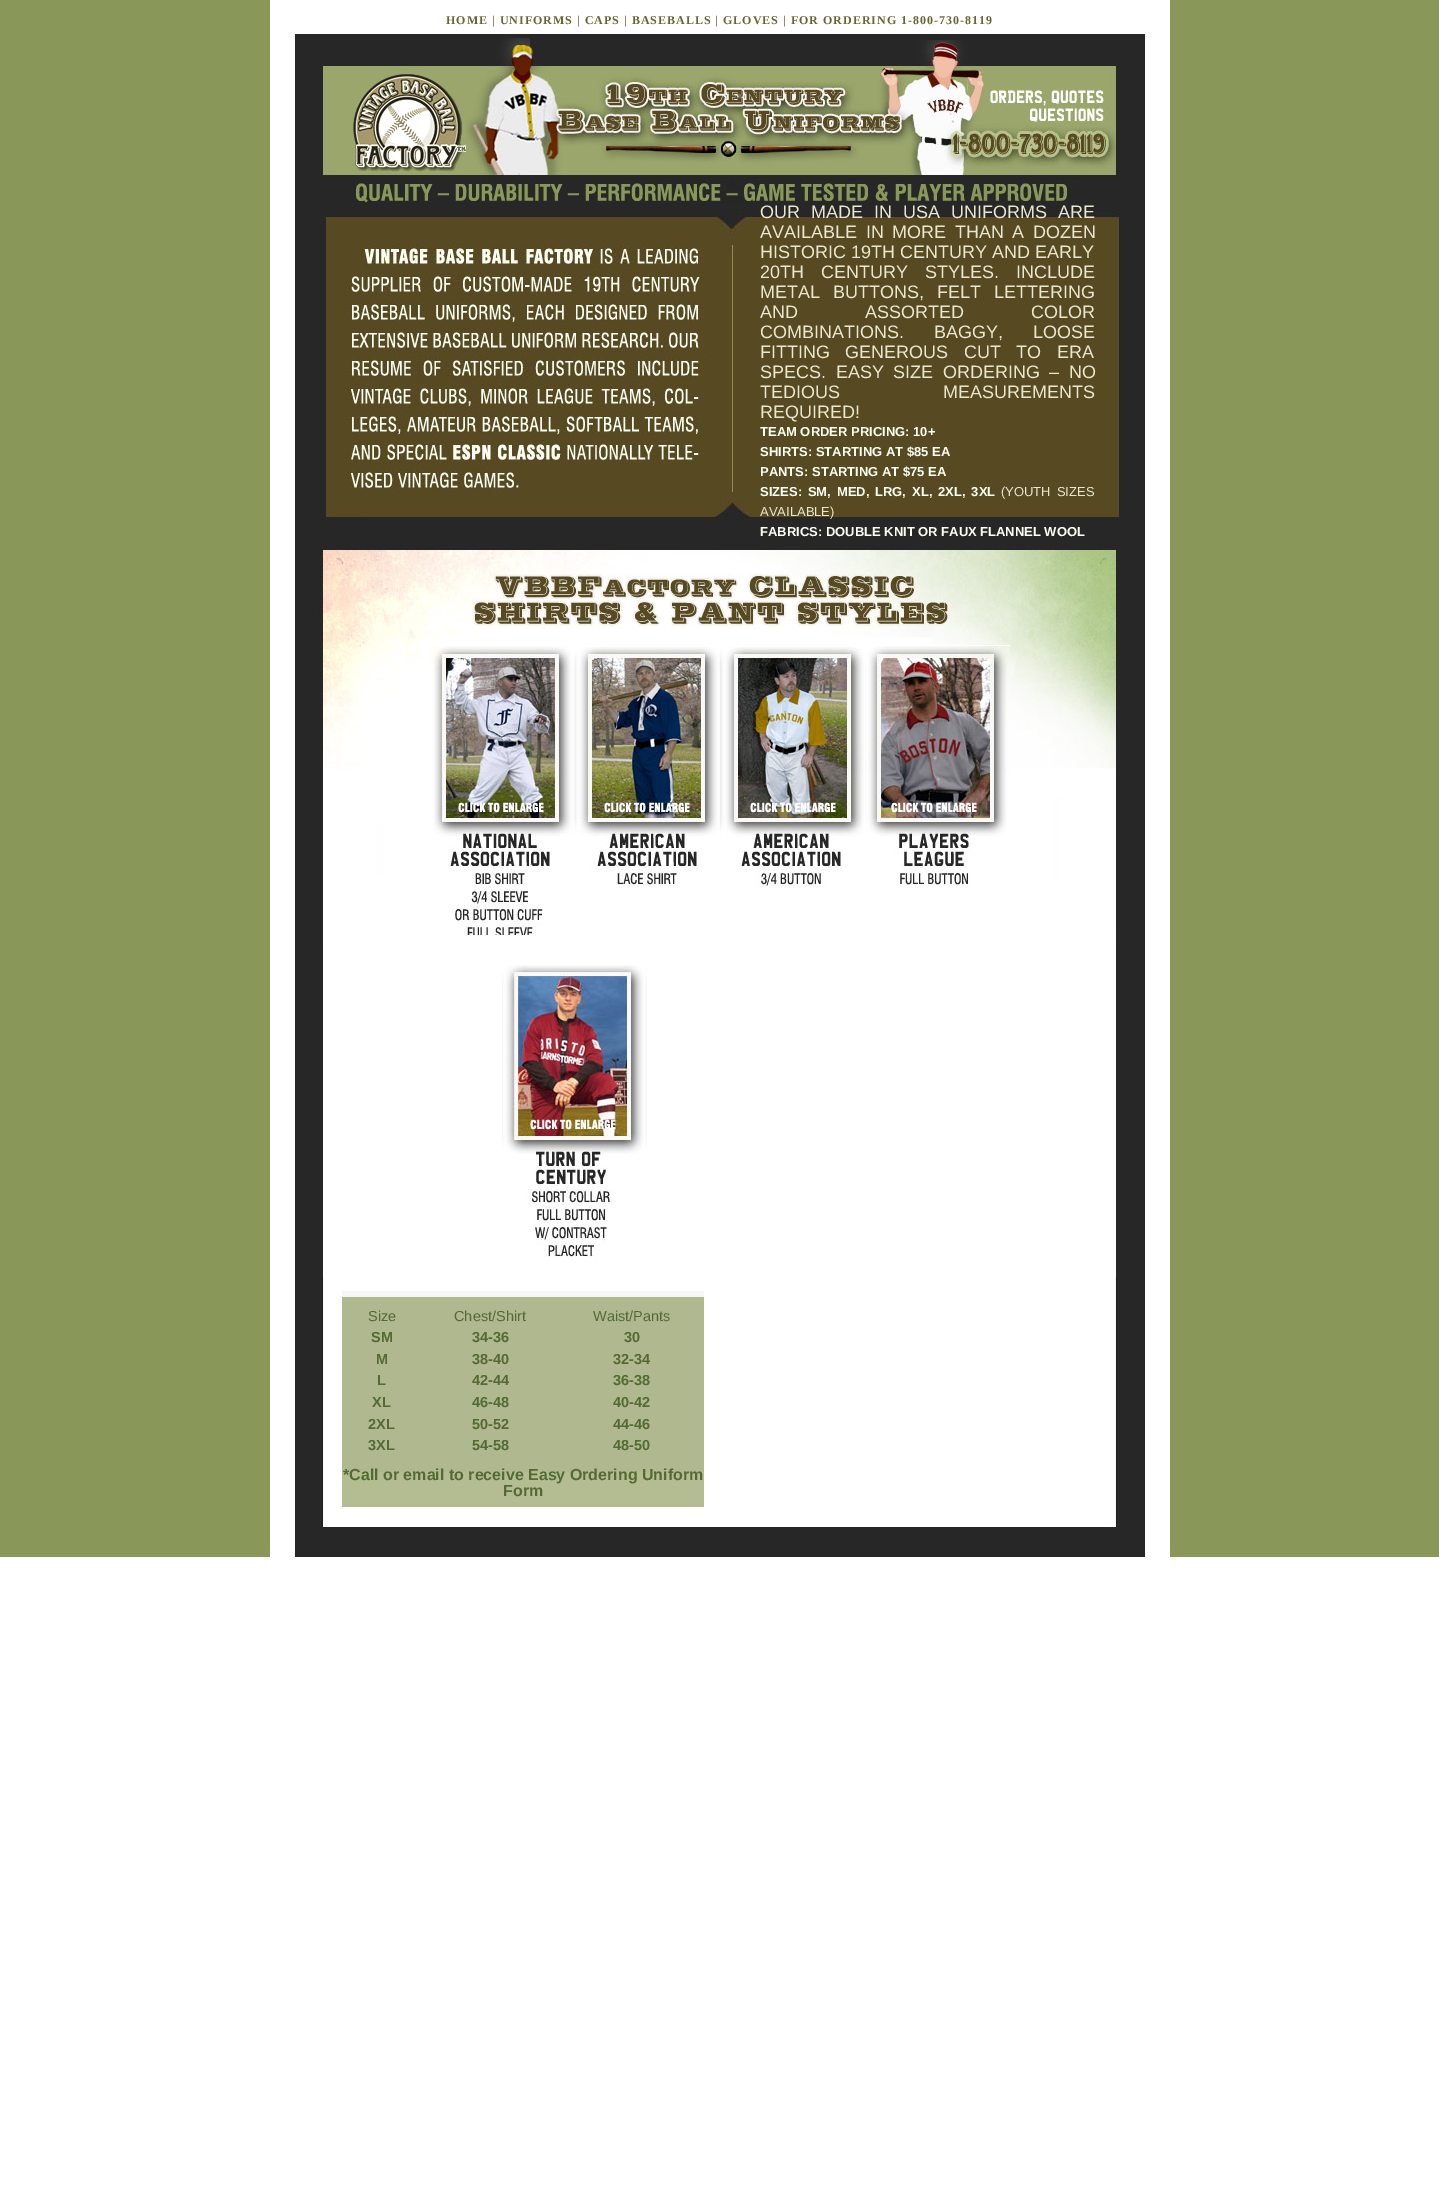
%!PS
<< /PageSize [1439 2188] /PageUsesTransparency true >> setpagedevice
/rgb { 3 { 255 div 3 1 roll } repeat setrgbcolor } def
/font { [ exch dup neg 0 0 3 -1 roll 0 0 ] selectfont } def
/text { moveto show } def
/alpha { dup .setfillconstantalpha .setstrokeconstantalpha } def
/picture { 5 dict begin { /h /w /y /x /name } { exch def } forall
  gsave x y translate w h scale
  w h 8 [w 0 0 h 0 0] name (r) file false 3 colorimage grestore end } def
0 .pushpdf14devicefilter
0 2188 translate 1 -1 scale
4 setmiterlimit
255 255 255 rgb
0 0 1439 2188 rectfill
137 151 88 rgb
0 0 1439 1557 rectfill
39 39 39 rgb
295 34 850 1523 rectfill
255 255 255 rgb
1145 0 25 1557 rectfill
270 0 25 1557 rectfill
295 0 850 34 rectfill
(img_01.rgb) 319 38 798 165 picture
(img_02.rgb) 353 74 114 98 picture
(img_03.rgb) 322 212 398 305 picture
(img_04.rgb) 720 212 400 305 picture
(img_05.rgb) 319 549 798 392 picture
(img_06.rgb) 430 646 145 289 picture
(img_07.rgb) 575 647 145 240 picture
(img_08.rgb) 720 647 144 240 picture
(img_09.rgb) 865 645 145 242 picture
323 941 793 336 rectfill
(img_10.rgb) 502 965 145 292 picture
(img_11.rgb) 322 1277 795 250 picture
180 188 145 rgb
342 1297 362 210 rectfill
0.07 alpha
128 128 128 rgb
342 1291 79 181 rectfill
421 1291 138 181 rectfill
559 1291 145 181 rectfill
/LiberationSerif-Bold 12 font
1 alpha
102 102 51 rgb
446 24 moveto 1 0 (HOME | UNIFORMS | CAPS | BASEBALLS | GLOVES | FOR ORDERING 1-800-730-8119) ashow
/LiberationSans-Regular 18 font
233 231 206 rgb
760 218 moveto 6 0 32 (OUR MADE IN USA UNIFORMS ARE) widthshow
760 238 moveto 3.5 0 32 (AVAILABLE IN MORE THAN A DOZEN) widthshow
(HISTORIC 19TH CENTURY AND EARLY) 760 258 text
760 278 moveto 12 0 32 (20TH CENTURY STYLES. INCLUDE) widthshow
760 298 moveto 8 0 32 (METAL BUTTONS, FELT LETTERING) widthshow
760 318 moveto 62 0 32 (AND ASSORTED COLOR) widthshow
760 338 moveto 25 0 32 (COMBINATIONS. BAGGY, LOOSE) widthshow
760 358 moveto 10.5 0 32 (FITTING GENEROUS CUT TO ERA) widthshow
760 378 moveto 4.5 0 32 (SPECS. EASY SIZE ORDERING – NO) widthshow
760 398 moveto 98 0 32 (TEDIOUS MEASUREMENTS) widthshow
(REQUIRED!) 760 418 text
/LiberationSans-Bold 13 font
252 255 244 rgb
(TEAM ORDER PRICING: 10+) 760 436 text
(SHIRTS: STARTING AT $85 EA) 760 456 text
(PANTS: STARTING AT $75 EA) 760 476 text
760 496 moveto 2.25 0 32 (SIZES: SM, MED, LRG, XL, 2XL, 3XL) widthshow
/LiberationSans-Regular 13 font
233 231 206 rgb
1001 496 moveto 2.25 0 32 (\(YOUTH SIZES) widthshow
(AVAILABLE\)) 760 516 text
/LiberationSans-Bold 13 font
252 255 244 rgb
(FABRICS: DOUBLE KNIT OR FAUX FLANNEL WOOL) 760 536 text
/LiberationSans-Regular 14.5 font
83 107 50 rgb
(Size) 368 1321 text
/LiberationSans-Bold 14.5 font
(SM) 371 1342 text
(M) 376 1364 text
(L) 377 1385 text
(XL) 372 1407 text
(2XL) 368 1429 text
(3XL) 368 1450 text
/LiberationSans-Regular 14.5 font
(Chest/Shirt) 454 1321 text
/LiberationSans-Bold 14.5 font
(34-36) 472 1342 text
(38-40) 472 1364 text
(42-44) 472 1385 text
(46-48) 472 1407 text
(50-52) 472 1429 text
(54-58) 472 1450 text
/LiberationSans-Regular 14.5 font
(Waist/Pants) 593 1321 text
/LiberationSans-Bold 14.5 font
(30) 624 1342 text
(32-34) 613 1364 text
(36-38) 613 1385 text
(40-42) 613 1407 text
(44-46) 613 1429 text
(48-50) 613 1450 text
/LiberationSans-Bold 16 font
(*Call or email to receive Easy Ordering Uniform) 343 1480 text
(Form) 503 1496 text
.poppdf14devicefilter showpage
